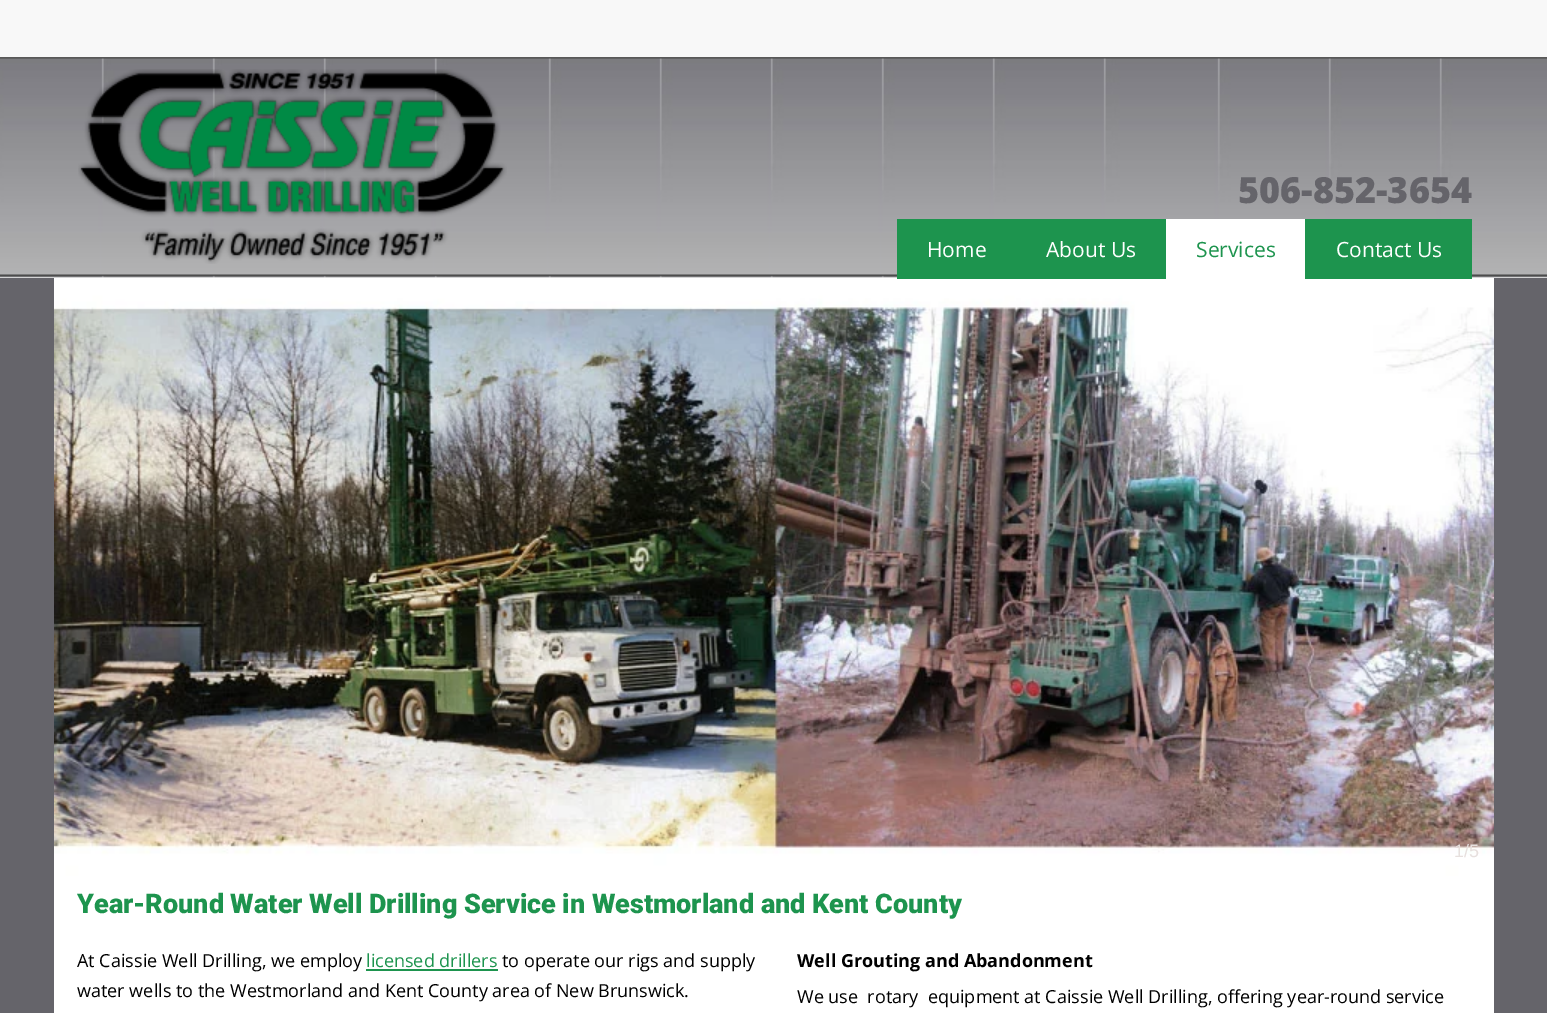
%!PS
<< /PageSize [1547 1013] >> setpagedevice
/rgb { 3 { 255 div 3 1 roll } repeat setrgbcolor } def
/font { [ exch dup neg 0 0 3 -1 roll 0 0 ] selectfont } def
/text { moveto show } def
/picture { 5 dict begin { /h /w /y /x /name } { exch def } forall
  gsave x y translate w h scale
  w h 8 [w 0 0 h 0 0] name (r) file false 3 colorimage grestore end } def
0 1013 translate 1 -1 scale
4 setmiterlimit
101 100 106 rgb
0 0 1547 1013 rectfill
248 248 248 rgb
0 0 1547 57 rectfill
242 242 242 rgb
0 277 1547 1 rectfill
(img_01.rgb) 0 57 1547 221 picture
(img_02.rgb) 78 69 429 195 picture
(img_03.rgb) 54 278 1440 598 picture
29 148 78 rgb
897 219 269 60 rectfill
255 255 255 rgb
1166 219 139 59 rectfill
29 148 78 rgb
1305 219 167 60 rectfill
255 255 255 rgb
54 876 1440 137 rectfill
29 148 78 rgb
366 969 132 2 rectfill
/OpenSans-ExtraBold 36 font
101 100 106 rgb
(506-852-3654) 1238 203 text
/OpenSans-Regular 21 font
255 255 255 rgb
(Home) 927 257 text
(About Us) 1046 257 text
29 148 78 rgb
(Services) 1196 257 text
255 255 255 rgb
(Contact Us) 1336 257 text
/LiberationSans-Regular 18 font
231 224 222 rgb
(1/5) 1454 857 text
/Roboto-Black 27 font
29 148 78 rgb
(Year-Round Water Well Drilling Service in Westmorland and Kent County) 77 913 text
/OpenSans-Regular 18 font
0 0 0 rgb
(At Caissie Well Drilling, we employ) 77 967 text
29 148 78 rgb
(licensed drillers) 366 967 text
0 0 0 rgb
(to operate our rigs and supply) 502 967 text
(water wells to the Westmorland and Kent County area of New Brunswick.) 77 997 text
/OpenSans-Bold 18 font
(Well Grouting and Abandonment) 797 967 text
/OpenSans-Regular 18 font
(We use  rotary  equipment at Caissie Well Drilling, offering year-round service) 797 1003 text
showpage
